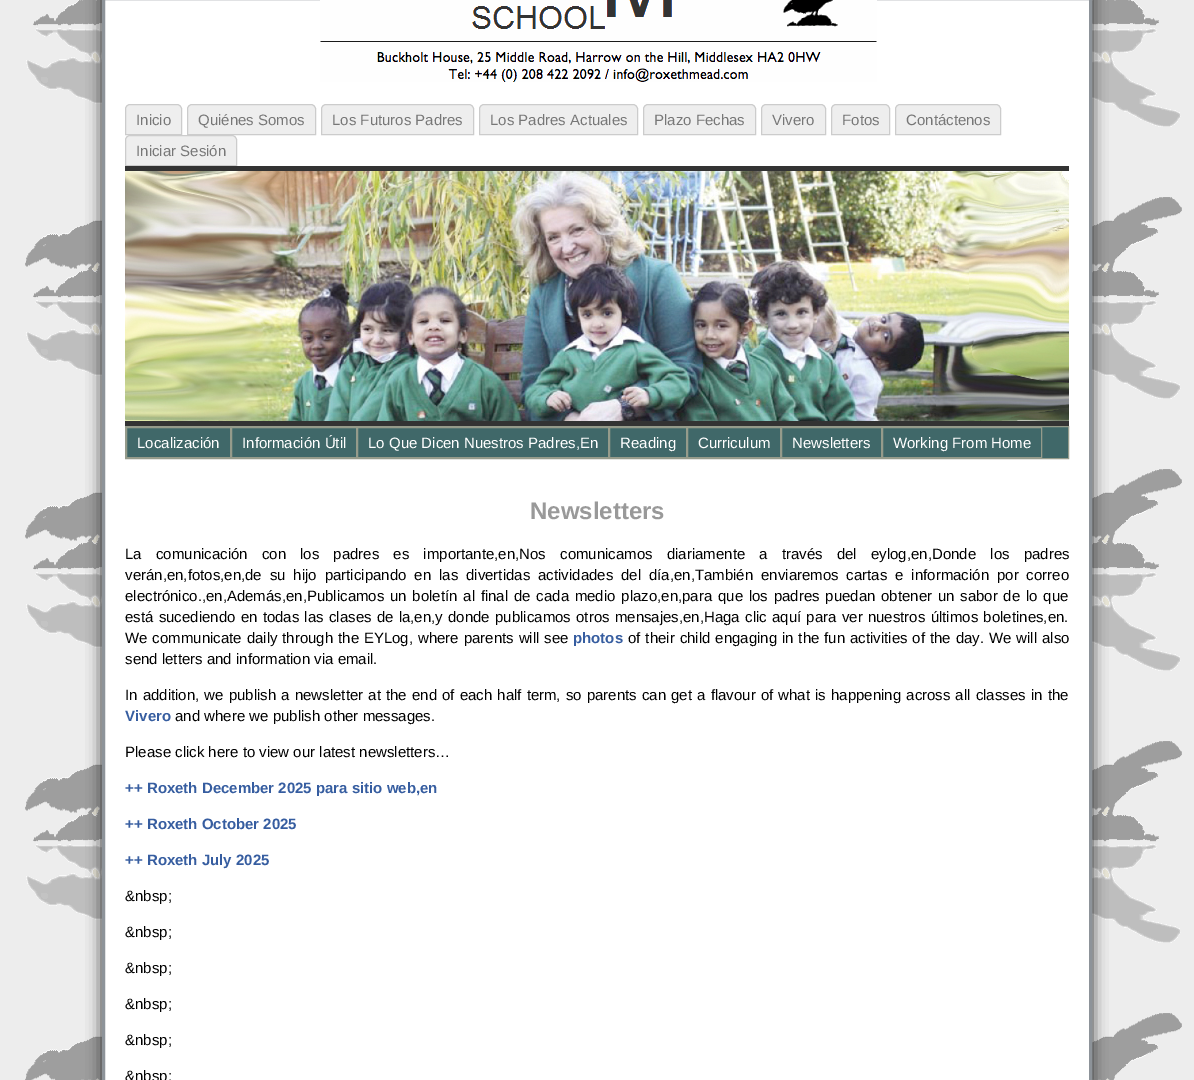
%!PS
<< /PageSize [1194 1080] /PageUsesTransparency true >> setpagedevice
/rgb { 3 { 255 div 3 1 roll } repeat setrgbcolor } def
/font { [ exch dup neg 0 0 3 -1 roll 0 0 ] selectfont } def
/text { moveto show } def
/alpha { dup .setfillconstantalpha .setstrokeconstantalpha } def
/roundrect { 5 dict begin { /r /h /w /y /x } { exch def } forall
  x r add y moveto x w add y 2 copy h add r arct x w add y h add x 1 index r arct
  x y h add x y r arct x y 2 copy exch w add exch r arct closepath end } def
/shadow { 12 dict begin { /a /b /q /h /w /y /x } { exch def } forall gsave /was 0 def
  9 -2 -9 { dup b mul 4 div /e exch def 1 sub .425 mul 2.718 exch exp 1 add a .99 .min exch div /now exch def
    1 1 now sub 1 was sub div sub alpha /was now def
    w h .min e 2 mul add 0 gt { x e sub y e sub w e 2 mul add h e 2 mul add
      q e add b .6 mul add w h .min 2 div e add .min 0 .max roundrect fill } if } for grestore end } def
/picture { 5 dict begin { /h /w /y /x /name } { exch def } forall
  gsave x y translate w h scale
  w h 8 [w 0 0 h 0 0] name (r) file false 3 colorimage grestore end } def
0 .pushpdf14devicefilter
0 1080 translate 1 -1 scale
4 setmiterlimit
255 255 255 rgb
0 0 1194 1080 rectfill
(img_01.rgb) 0 0 1194 1080 picture
51 51 51 rgb
102 -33 990 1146 10 7.5 1 shadow
255 255 255 rgb
103.5 -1.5 moveto 987 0 rlineto 0 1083 rlineto -987 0 rlineto closepath gsave fill grestore
141 147 153 rgb
3 setlinewidth
stroke
(img_02.rgb) 320 0 557 82 picture
238 238 238 rgb
130 104.5 moveto 47 0 rlineto 2.5 0 4.5 2 4.5 4.5 rcurveto 0 25.5 rlineto -56 0 rlineto 0 -25.5 rlineto 0 -2.5 2 -4.5 4.5 -4.5 rcurveto closepath gsave fill grestore
204 204 204 rgb
1 setlinewidth
stroke
238 238 238 rgb
192 104.5 moveto 119 0 rlineto 2.5 0 4.5 2 4.5 4.5 rcurveto 0 25.5 rlineto -128 0 rlineto 0 -25.5 rlineto 0 -2.5 2 -4.5 4.5 -4.5 rcurveto closepath gsave fill grestore
204 204 204 rgb
stroke
238 238 238 rgb
326 104.5 moveto 143 0 rlineto 2.5 0 4.5 2 4.5 4.5 rcurveto 0 25.5 rlineto -152 0 rlineto 0 -25.5 rlineto 0 -2.5 2 -4.5 4.5 -4.5 rcurveto closepath gsave fill grestore
204 204 204 rgb
stroke
238 238 238 rgb
484 104.5 moveto 149 0 rlineto 2.5 0 4.5 2 4.5 4.5 rcurveto 0 25.5 rlineto -158 0 rlineto 0 -25.5 rlineto 0 -2.5 2 -4.5 4.5 -4.5 rcurveto closepath gsave fill grestore
204 204 204 rgb
stroke
238 238 238 rgb
648 104.5 moveto 103 0 rlineto 2.5 0 4.5 2 4.5 4.5 rcurveto 0 25.5 rlineto -112 0 rlineto 0 -25.5 rlineto 0 -2.5 2 -4.5 4.5 -4.5 rcurveto closepath gsave fill grestore
204 204 204 rgb
stroke
238 238 238 rgb
766 104.5 moveto 55 0 rlineto 2.5 0 4.5 2 4.5 4.5 rcurveto 0 25.5 rlineto -64 0 rlineto 0 -25.5 rlineto 0 -2.5 2 -4.5 4.5 -4.5 rcurveto closepath gsave fill grestore
204 204 204 rgb
stroke
238 238 238 rgb
836 104.5 moveto 49 0 rlineto 2.5 0 4.5 2 4.5 4.5 rcurveto 0 25.5 rlineto -58 0 rlineto 0 -25.5 rlineto 0 -2.5 2 -4.5 4.5 -4.5 rcurveto closepath gsave fill grestore
204 204 204 rgb
stroke
238 238 238 rgb
900 104.5 moveto 96 0 rlineto 2.5 0 4.5 2 4.5 4.5 rcurveto 0 25.5 rlineto -105 0 rlineto 0 -25.5 rlineto 0 -2.5 2 -4.5 4.5 -4.5 rcurveto closepath gsave fill grestore
204 204 204 rgb
stroke
238 238 238 rgb
130 135.5 moveto 102 0 rlineto 2.5 0 4.5 2 4.5 4.5 rcurveto 0 25.5 rlineto -111 0 rlineto 0 -25.5 rlineto 0 -2.5 2 -4.5 4.5 -4.5 rcurveto closepath gsave fill grestore
204 204 204 rgb
stroke
51 51 51 rgb
125 166 944 5 rectfill
125 421 944 5 rectfill
(img_03.rgb) 125 171 944 250 picture
64 104 105 rgb
127 427 941 31 rectfill
149 155 139 rgb
125.5 426.5 943 32 rectstroke
126.5 427.5 104 30 rectstroke
231.5 427.5 125 30 rectstroke
357.5 427.5 251 30 rectstroke
609.5 427.5 77 30 rectstroke
687.5 427.5 93 30 rectstroke
781.5 427.5 100 30 rectstroke
882.5 427.5 159 30 rectstroke
/LiberationSans-Regular 15 font
119 119 119 rgb
(Inicio) 136 125 text
(Quiénes Somos) 198 125 text
(Los Futuros Padres) 332 125 text
(Los Padres Actuales) 490 125 text
(Plazo Fechas) 654 125 text
(Vivero) 772 125 text
(Fotos) 842 125 text
(Contáctenos) 906 125 text
(Iniciar Sesión) 136 156 text
255 255 255 rgb
(Localización) 137 448 text
(Información Útil) 242 448 text
(Lo Que Dicen Nuestros Padres,En) 368 448 text
(Reading) 620 448 text
(Curriculum) 698 448 text
(Newsletters) 792 448 text
(Working From Home) 893 448 text
/LiberationSans-Bold 24 font
153 153 153 rgb
(Newsletters) 530 519 text
/LiberationSans-Regular 15 font
0 0 0 rgb
125 559 moveto 10 0 32 (La comunicación con los padres es importante,en,Nos comunicamos diariamente a través del eylog,en,Donde los padres) widthshow
125 580 moveto 3.75 0 32 (verán,en,fotos,en,de su hijo participando en las divertidas actividades del día,en,También enviaremos cartas e información por correo) widthshow
125 601 moveto 1.6 0 32 (electrónico.,en,Además,en,Publicamos un boletín al final de cada medio plazo,en,para que los padres puedan obtener un sabor de lo que) widthshow
125 622 moveto 1.1 0 32 (está sucediendo en todas las clases de la,en,y donde publicamos otros mensajes,en,Haga clic aquí para ver nuestros últimos boletines,en.) widthshow
125 643 moveto 0.75 0 32 (We communicate daily through the EYLog, where parents will see) widthshow
/LiberationSans-Bold 15 font
54 93 160 rgb
(photos) 573 643 text
/LiberationSans-Regular 15 font
0 0 0 rgb
628 643 moveto 0.75 0 32 (of their child engaging in the fun activities of the day. We will also) widthshow
(send letters and information via email.) 125 664 text
125 700 moveto 0.95 0 32 (In addition, we publish a newsletter at the end of each half term, so parents can get a flavour of what is happening across all classes in the) widthshow
/LiberationSans-Bold 15 font
54 93 160 rgb
(Vivero) 125 721 text
/LiberationSans-Regular 15 font
0 0 0 rgb
(and where we publish other messages.) 175 721 text
(Please click here to view our latest newsletters…) 125 757 text
/LiberationSans-Bold 15 font
54 93 160 rgb
(++ Roxeth December 2025 para sitio web,en) 125 793 text
(++ Roxeth October 2025) 125 829 text
(++ Roxeth July 2025) 125 865 text
/LiberationSans-Regular 15 font
0 0 0 rgb
(&nbsp;) 125 901 text
(&nbsp;) 125 937 text
(&nbsp;) 125 973 text
(&nbsp;) 125 1009 text
(&nbsp;) 125 1045 text
(&nbsp;) 125 1081 text
.poppdf14devicefilter showpage
